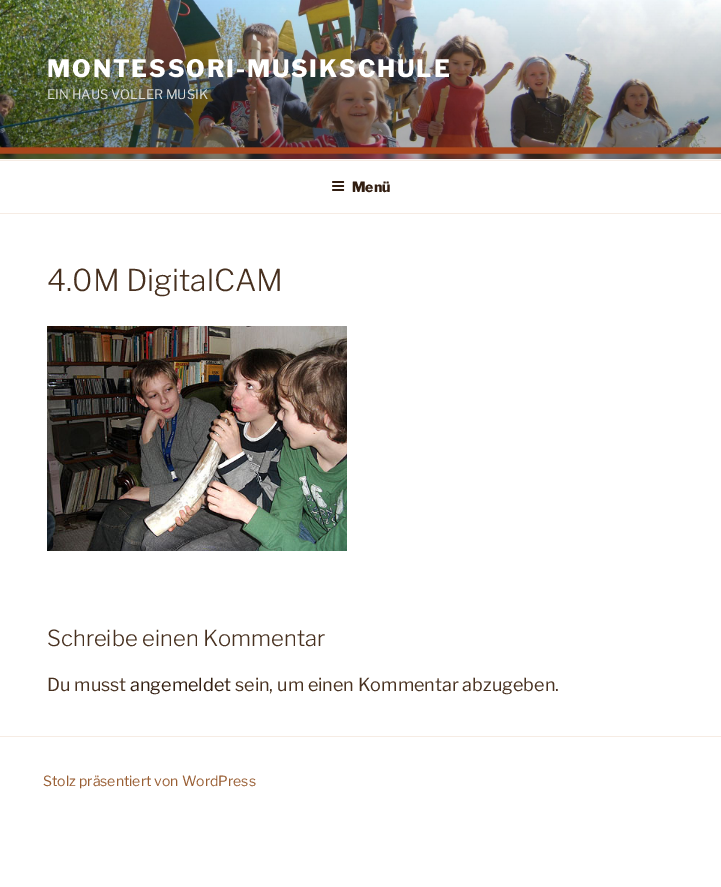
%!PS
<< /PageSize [721 887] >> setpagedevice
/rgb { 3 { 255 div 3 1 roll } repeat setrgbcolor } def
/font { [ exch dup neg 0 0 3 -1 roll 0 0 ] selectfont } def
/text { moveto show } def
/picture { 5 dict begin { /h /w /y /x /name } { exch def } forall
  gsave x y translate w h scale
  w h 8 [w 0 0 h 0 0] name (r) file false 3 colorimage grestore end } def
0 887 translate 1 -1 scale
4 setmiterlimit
255 255 255 rgb
0 0 721 887 rectfill
252 249 247 rgb
0 159 721 1 rectfill
(img_01.rgb) 0 0 721 159 picture
246 236 228 rgb
0 160 721 1 rectfill
0 213 721 1 rectfill
(img_02.rgb) 332 181 13 10 picture
(img_03.rgb) 47 326 300 225 picture
0 736 721 1 rectfill
/LibreFranklin-ExtraBold 24 font
255 255 255 rgb
47 77 moveto 1.9 0 (MONTESSORI-MUSIKSCHULE) ashow
/LibreFranklin-Regular 13 font
219 221 217 rgb
(EIN HAUS VOLLER MUSIK) 47 99 text
/LibreFranklin-ExtraBold 14 font
50 30 17 rgb
(Menü) 352 192 text
/LibreFranklin-Light 30 font
71 48 31 rgb
(4.0M DigitalCAM) 47 291 text
/LibreFranklin-Light 22 font
(Schreibe einen Kommentar) 47 646 text
/LibreFranklin-Regular 18 font
(Du musst) 47 691 text
50 30 17 rgb
(angemeldet) 130 691 text
71 48 31 rgb
(sein, um einen Kommentar abzugeben.) 235 691 text
/LibreFranklin-Regular 14 font
153 94 51 rgb
(Stolz präsentiert von WordPress) 43 786 text
showpage
